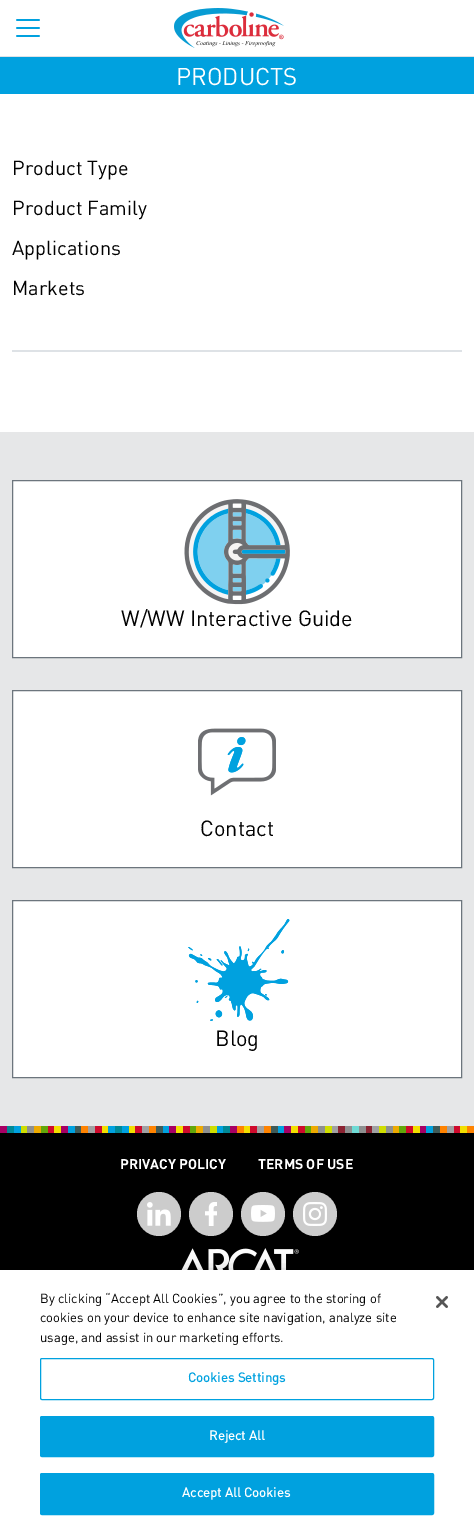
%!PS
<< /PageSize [474 1531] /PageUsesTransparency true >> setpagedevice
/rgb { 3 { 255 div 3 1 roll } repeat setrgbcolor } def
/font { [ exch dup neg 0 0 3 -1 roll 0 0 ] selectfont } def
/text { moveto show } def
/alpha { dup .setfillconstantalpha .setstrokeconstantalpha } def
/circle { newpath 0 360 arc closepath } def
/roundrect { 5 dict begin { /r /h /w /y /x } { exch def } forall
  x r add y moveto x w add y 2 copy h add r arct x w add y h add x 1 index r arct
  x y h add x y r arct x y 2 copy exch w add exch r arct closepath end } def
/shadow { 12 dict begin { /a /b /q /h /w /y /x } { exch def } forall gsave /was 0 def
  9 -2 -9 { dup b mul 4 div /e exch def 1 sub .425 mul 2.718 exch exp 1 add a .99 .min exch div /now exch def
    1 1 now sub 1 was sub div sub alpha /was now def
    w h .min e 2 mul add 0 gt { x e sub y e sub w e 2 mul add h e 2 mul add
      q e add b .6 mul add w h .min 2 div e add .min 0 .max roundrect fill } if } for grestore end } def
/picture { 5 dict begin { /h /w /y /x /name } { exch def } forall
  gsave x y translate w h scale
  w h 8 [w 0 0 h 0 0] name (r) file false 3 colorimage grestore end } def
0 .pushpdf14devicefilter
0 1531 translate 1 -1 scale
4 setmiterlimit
255 255 255 rgb
0 0 474 1531 rectfill
222 226 230 rgb
0 56 474 1 rectfill
(img_01.rgb) 16 19 24 18 picture
(img_02.rgb) 174 8 110 40 picture
0 161 223 rgb
0 57 474 37 rectfill
222 226 230 rgb
12 350 450 2 rectfill
230 231 232 rgb
0 432 474 694 rectfill
255 255 255 rgb
12.5 480.5 moveto 449 0 rlineto 0 177 rlineto -449 0 rlineto closepath gsave fill grestore
108 117 125 rgb
stroke
(img_03.rgb) 184 499 106 106 picture
255 255 255 rgb
12.5 690.5 moveto 449 0 rlineto 0 177 rlineto -449 0 rlineto closepath gsave fill grestore
108 117 125 rgb
stroke
(img_04.rgb) 198 728 78 68 picture
255 255 255 rgb
12.5 900.5 moveto 449 0 rlineto 0 177 rlineto -449 0 rlineto closepath gsave fill grestore
108 117 125 rgb
stroke
(img_05.rgb) 188 919 102 102 picture
0 0 0 rgb
0 1133 474 137 rectfill
(img_06.rgb) 0 1126 474 7 picture
204 204 204 rgb
159 1214 22 circle fill
(img_07.rgb) 147 1202 24 24 picture
211 1214 22 circle fill
(img_08.rgb) 205 1202 12 24 picture
263 1214 22 circle fill
(img_09.rgb) 251 1205 24 17 picture
315 1214 22 circle fill
(img_10.rgb) 303 1202 24 24 picture
(img_11.rgb) 181 1248 118 22 picture
0 0 0 rgb
0 1270 474 261 0 9 0.2 shadow
255 255 255 rgb
0 1270 474 261 rectfill
0 161 223 rgb
40.5 1358.5 393 41 1.5 roundrect stroke
40.5 1416.5 393 40 1.5 roundrect gsave fill grestore
stroke
40.5 1473.5 393 41 1.5 roundrect gsave fill grestore
stroke
(img_12.rgb) 436 1296 12 12 picture
/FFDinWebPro-Regular 24 font
255 255 255 rgb
(PRODUCTS) 176 85 text
/FFDinWebPro-Regular 20 font
0 0 0 rgb
(Product Type) 12 175 text
(Product Family) 12 215 text
(Applications) 12 255 text
(Markets) 12 295 text
/FFDinWebPro-Regular 21.75 font
(W/WW Interactive Guide) 121 626 text
(Contact) 200 836 text
(Blog) 215 1046 text
/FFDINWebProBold-Regular 14 font
255 255 255 rgb
(PRIVACY POLICY) 120 1169 text
(TERMS OF USE) 258 1169 text
/FFDinWebPro-Regular 13 font
0 0 0 rgb
(By clicking “Accept All Cookies”, you agree to the storing of) 40 1303 text
(cookies on your device to enhance site navigation, analyze site) 40 1322 text
(usage, and assist in our marketing efforts.) 40 1342 text
/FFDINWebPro-Bold 13 font
0 161 223 rgb
188 1382 moveto 0.1 0 (Cookies Settings) ashow
255 255 255 rgb
209 1440 moveto 0.1 0 (Reject All) ashow
182 1497 moveto 0.1 0 (Accept All Cookies) ashow
.poppdf14devicefilter showpage
